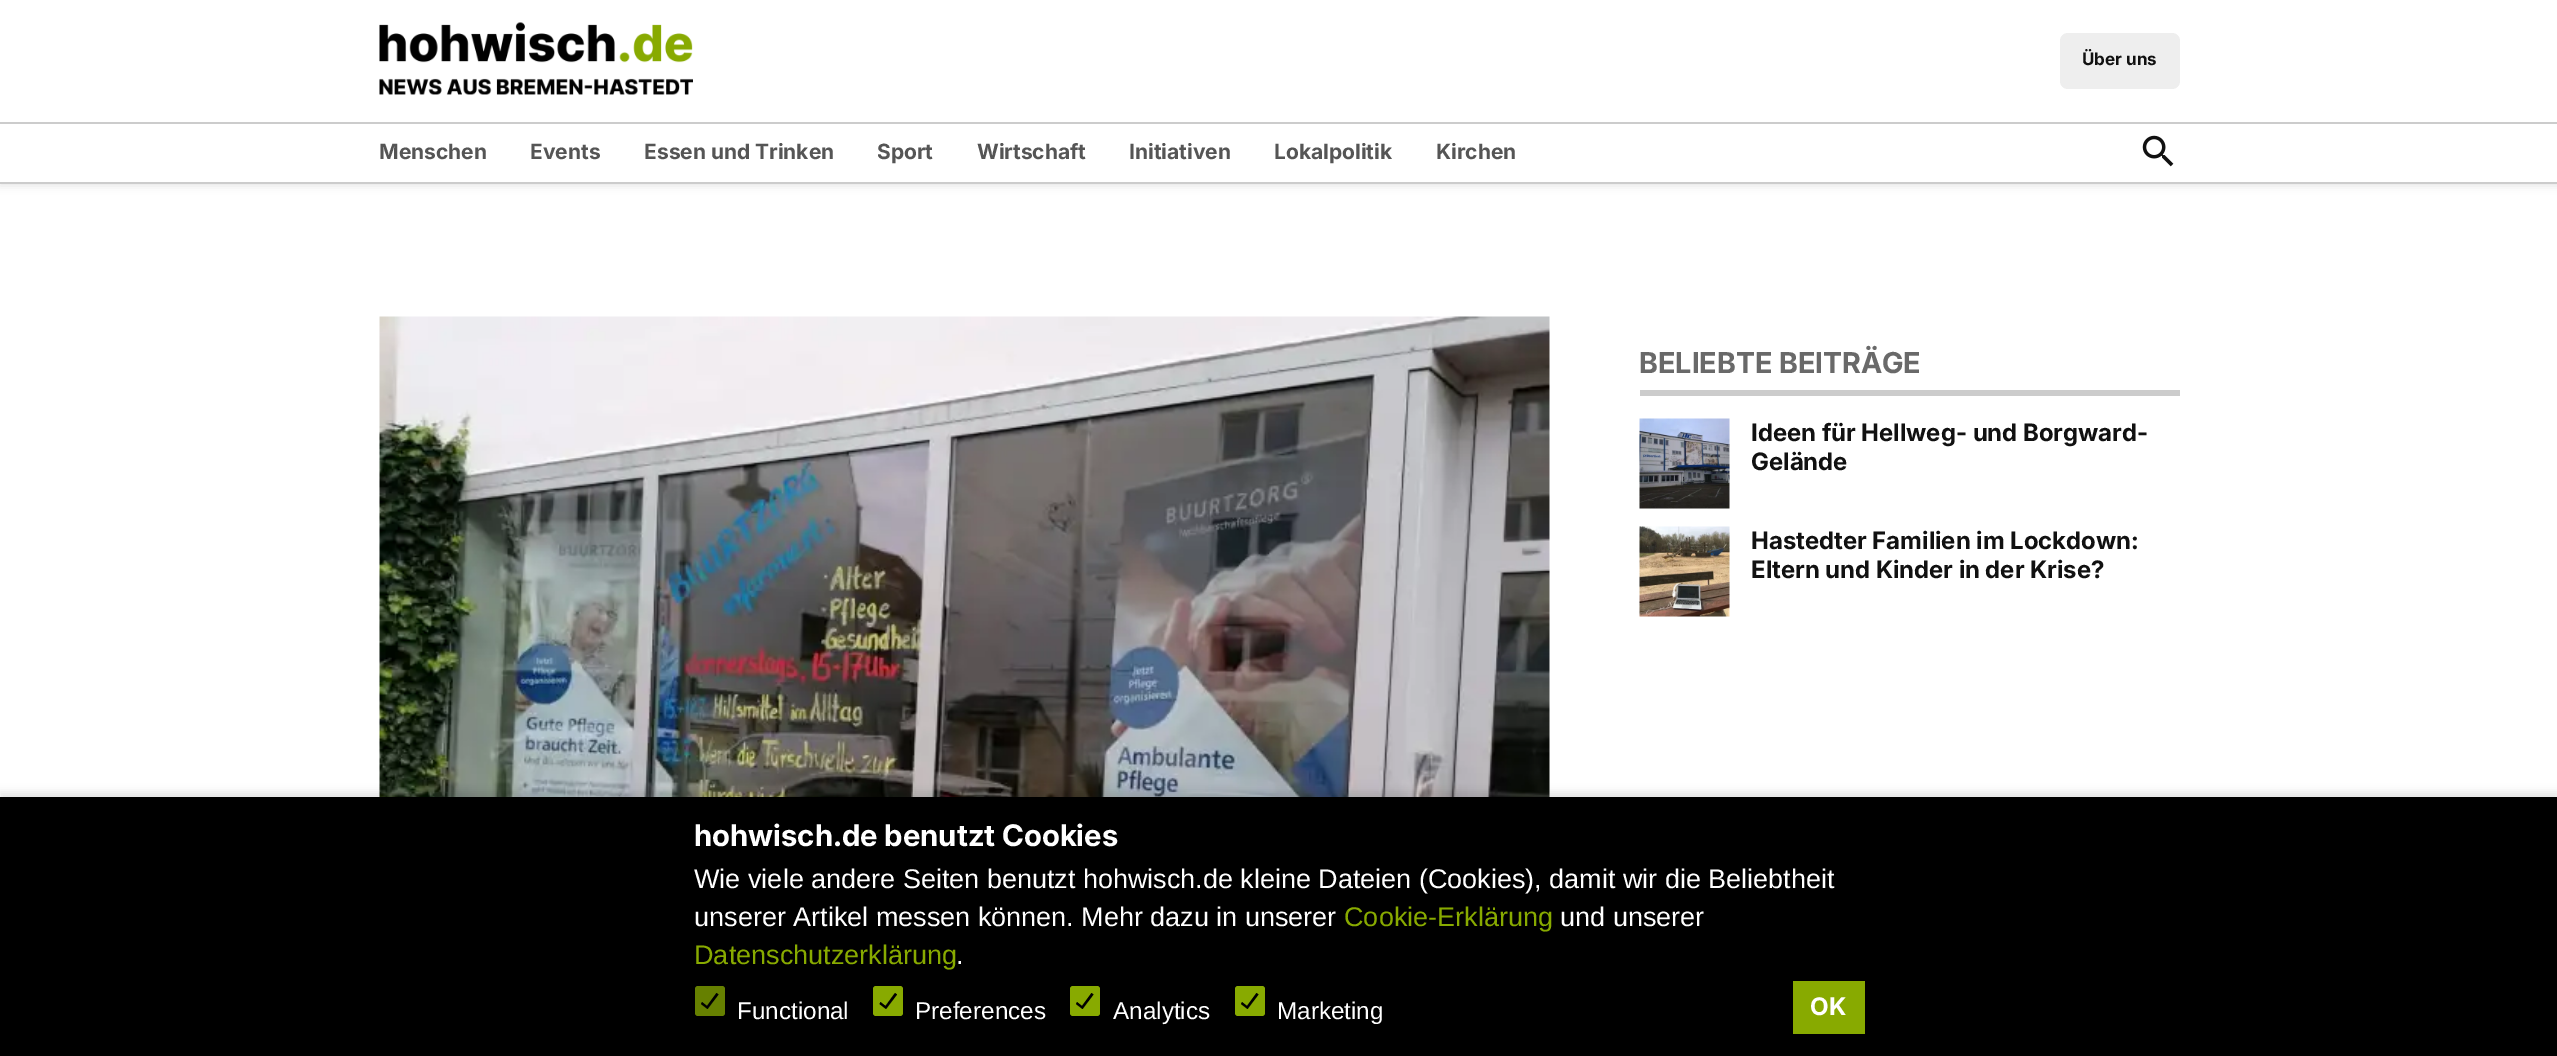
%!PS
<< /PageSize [2557 1056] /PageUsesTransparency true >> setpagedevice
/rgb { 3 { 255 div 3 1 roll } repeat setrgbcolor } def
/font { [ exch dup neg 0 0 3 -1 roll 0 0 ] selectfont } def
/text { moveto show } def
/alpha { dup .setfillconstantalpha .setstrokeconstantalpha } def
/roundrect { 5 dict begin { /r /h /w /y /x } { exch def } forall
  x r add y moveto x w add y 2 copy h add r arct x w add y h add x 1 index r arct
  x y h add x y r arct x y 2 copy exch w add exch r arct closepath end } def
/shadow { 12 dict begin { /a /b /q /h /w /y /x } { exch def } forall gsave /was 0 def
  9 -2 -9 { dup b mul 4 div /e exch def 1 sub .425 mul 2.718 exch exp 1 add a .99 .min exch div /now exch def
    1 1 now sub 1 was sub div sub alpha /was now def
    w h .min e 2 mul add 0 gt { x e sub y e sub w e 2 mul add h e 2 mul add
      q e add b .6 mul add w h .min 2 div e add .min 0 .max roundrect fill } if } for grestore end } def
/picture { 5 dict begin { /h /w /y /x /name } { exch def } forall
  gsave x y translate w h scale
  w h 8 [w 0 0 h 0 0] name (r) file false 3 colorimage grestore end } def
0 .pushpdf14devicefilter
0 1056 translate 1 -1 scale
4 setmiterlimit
255 255 255 rgb
0 0 2557 1056 rectfill
0 0 0 rgb
0 3 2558 183 0 4 0.1 shadow
255 255 255 rgb
0 0 2557 182 rectfill
(img_01.rgb) 379 22 314 73 picture
238 238 238 rgb
2060 33 120 56 8 roundrect fill
204 204 204 rgb
0 122 2557 2 rectfill
0 182 2557 2 rectfill
(img_02.rgb) 2142 135 32 32 picture
(img_03.rgb) 379 316 1171 481 picture
1640 390 540 6 rectfill
(img_04.rgb) 1639 418 91 91 picture
(img_05.rgb) 1639 526 91 91 picture
0 0 0 rgb
0 792 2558 260 0 4 0.1 shadow
0 797 2557 259 rectfill
102 128 0 rgb
695 986 30 30 3 roundrect fill
0 0 0 rgb
716.5 993 moveto -9.5 13 rlineto -5 -4 rlineto -1 2 rlineto 6.5 5 rlineto 11 -14.5 rlineto closepath fill
136 170 0 rgb
873 986 30 30 3 roundrect fill
0 0 0 rgb
895 993 moveto -9.5 13 rlineto -5 -4 rlineto -1 2 rlineto 6.5 5 rlineto 11 -14.5 rlineto closepath fill
136 170 0 rgb
1070 986 30 30 3 roundrect fill
0 0 0 rgb
1091.5 993 moveto -9.5 13 rlineto -5 -4 rlineto -1 2 rlineto 6.5 5 rlineto 11 -14.5 rlineto closepath fill
136 170 0 rgb
1235 986 30 30 3 roundrect fill
0 0 0 rgb
1256.5 993 moveto -9.5 13 rlineto -5 -4 rlineto -1 2 rlineto 6.5 5 rlineto 11 -14.5 rlineto closepath fill
136 170 0 rgb
1793 981 72 53 rectfill
/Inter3-Bold 17 font
17 17 17 rgb
(Über uns) 2082 65 text
/Inter3-Bold 21 font
85 85 85 rgb
(Menschen) 379 159 text
(Events) 530 159 text
(Essen und Trinken) 644 159 text
(Sport) 877 159 text
(Wirtschaft) 977 159 text
(Initiativen) 1129 159 text
(Lokalpolitik) 1274 159 text
(Kirchen) 1436 159 text
/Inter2-Bold 28.75 font
105 105 105 rgb
(BELIEBTE BEITRÄGE) 1639 373 text
/Inter-Bold 24 font
17 17 17 rgb
(Ideen für Hellweg- und Borgward-) 1751 441 text
(Gelände) 1751 470 text
(Hastedter Familien im Lockdown:) 1751 549 text
(Eltern und Kinder in der Krise?) 1751 578 text
/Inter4-Bold 29.75 font
255 255 255 rgb
(hohwisch.de benutzt Cookies) 694 846 text
/LiberationSans-Regular 27 font
(Wie viele andere Seiten benutzt hohwisch.de kleine Dateien \(Cookies\), damit wir die Beliebtheit) 694 888 text
(unserer Artikel messen können. Mehr dazu in unserer) 694 926 text
136 170 0 rgb
(Cookie-Erklärung) 1344 926 text
255 255 255 rgb
(und unserer) 1560 926 text
136 170 0 rgb
(Datenschutzerklärung) 694 964 text
255 255 255 rgb
(.) 956 964 text
/LiberationSans-Regular 24.25 font
(Functional) 737 1019 text
(Preferences) 915 1019 text
(Analytics) 1113 1019 text
(Marketing) 1277 1019 text
/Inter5-Bold 24.25 font
(OK) 1810 1015 text
.poppdf14devicefilter showpage
